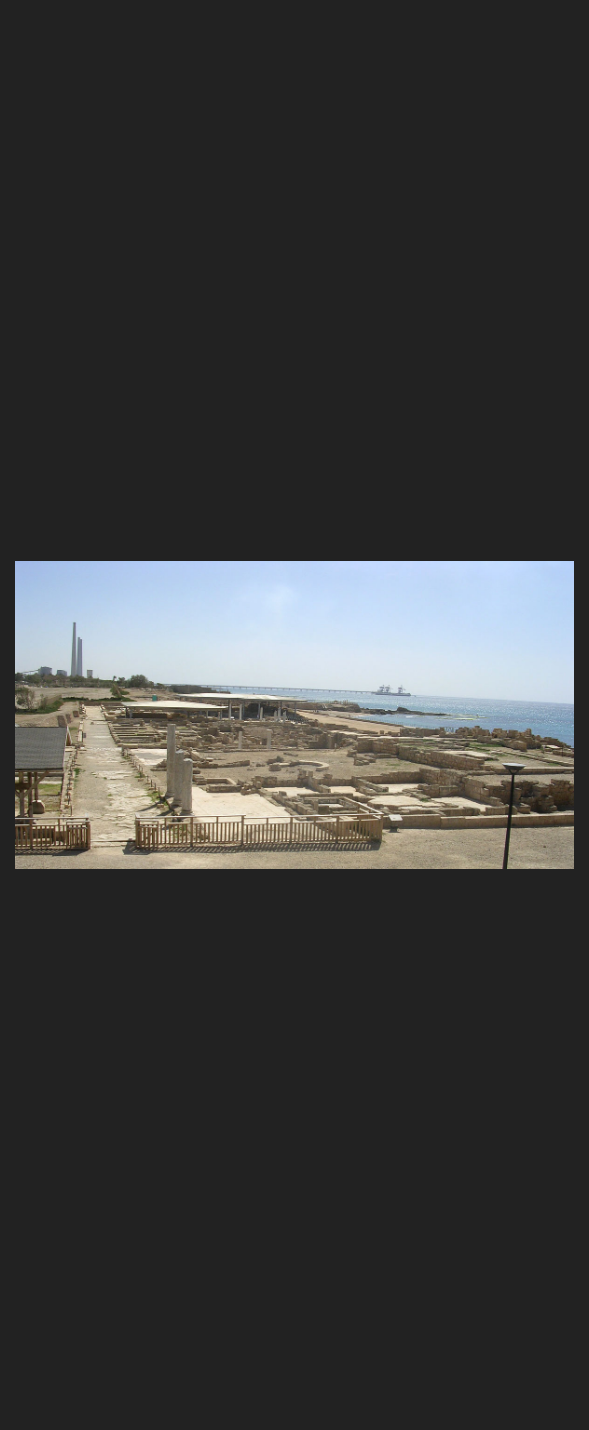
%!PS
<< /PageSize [589 1430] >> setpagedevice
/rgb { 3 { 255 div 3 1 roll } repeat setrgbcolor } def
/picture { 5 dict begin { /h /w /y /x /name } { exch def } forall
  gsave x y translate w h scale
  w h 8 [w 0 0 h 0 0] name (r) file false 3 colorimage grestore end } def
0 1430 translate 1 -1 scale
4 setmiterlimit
34 34 34 rgb
0 0 589 1430 rectfill
(img_01.rgb) 15 561 559 308 picture
showpage
